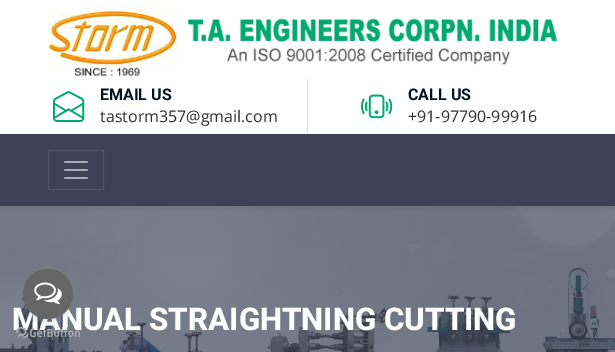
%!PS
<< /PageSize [615 352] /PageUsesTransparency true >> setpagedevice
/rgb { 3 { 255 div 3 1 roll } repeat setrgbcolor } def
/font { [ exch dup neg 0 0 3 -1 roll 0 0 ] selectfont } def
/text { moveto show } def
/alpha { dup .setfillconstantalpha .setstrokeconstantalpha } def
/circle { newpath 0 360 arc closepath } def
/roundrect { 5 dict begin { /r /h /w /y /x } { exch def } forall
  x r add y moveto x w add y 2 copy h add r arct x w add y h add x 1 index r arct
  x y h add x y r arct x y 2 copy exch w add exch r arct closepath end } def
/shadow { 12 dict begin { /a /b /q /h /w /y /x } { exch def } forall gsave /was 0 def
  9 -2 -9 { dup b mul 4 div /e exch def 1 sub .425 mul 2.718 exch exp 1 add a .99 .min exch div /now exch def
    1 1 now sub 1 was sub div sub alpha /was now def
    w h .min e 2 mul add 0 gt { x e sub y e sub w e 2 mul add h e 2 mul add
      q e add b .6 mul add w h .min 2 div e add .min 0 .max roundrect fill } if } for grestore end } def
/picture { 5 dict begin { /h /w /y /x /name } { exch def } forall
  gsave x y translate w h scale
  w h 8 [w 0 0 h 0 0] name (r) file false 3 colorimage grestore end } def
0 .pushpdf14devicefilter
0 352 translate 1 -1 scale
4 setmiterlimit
255 255 255 rgb
0 0 615 352 rectfill
(img_01.rgb) 48 6 510 71 picture
222 226 230 rgb
307 79 1 55 rectfill
(img_02.rgb) 53 91 32 31 picture
(img_03.rgb) 361 94 32 25 picture
(img_07.rgb) 0 206 615 146 picture
0 0 0 rgb
0 136 615 72 0 2 0.07 shadow
62 65 86 rgb
0 134 615 72 rectfill
81 84 103 rgb
48.5 150.5 55 39 rectstroke
(img_04.rgb) 64 161 24 18 picture
/Roboto-Bold 16 font
4 15 40 rgb
(EMAIL US) 100 100 text
/OpenSans-Regular 16 font
46 46 46 rgb
(tastorm357@gmail.com) 100 122 text
/Roboto-Bold 16 font
4 15 40 rgb
(CALL US) 408 100 text
/OpenSans-Regular 16 font
46 46 46 rgb
(+91-97790-99916) 408 122 text
/Roboto-ExtraBold 31.25 font
255 255 255 rgb
(MANUAL STRAIGHTNING CUTTING) 12 330 text
(img_06.rgb) 16 327 64 11 picture
136 136 136 rgb
23 270 50 50 25 3.5 0.4 shadow
102 102 102 rgb
48 294 25 circle fill
(img_05.rgb) 34 282 28 23 picture
.poppdf14devicefilter showpage
